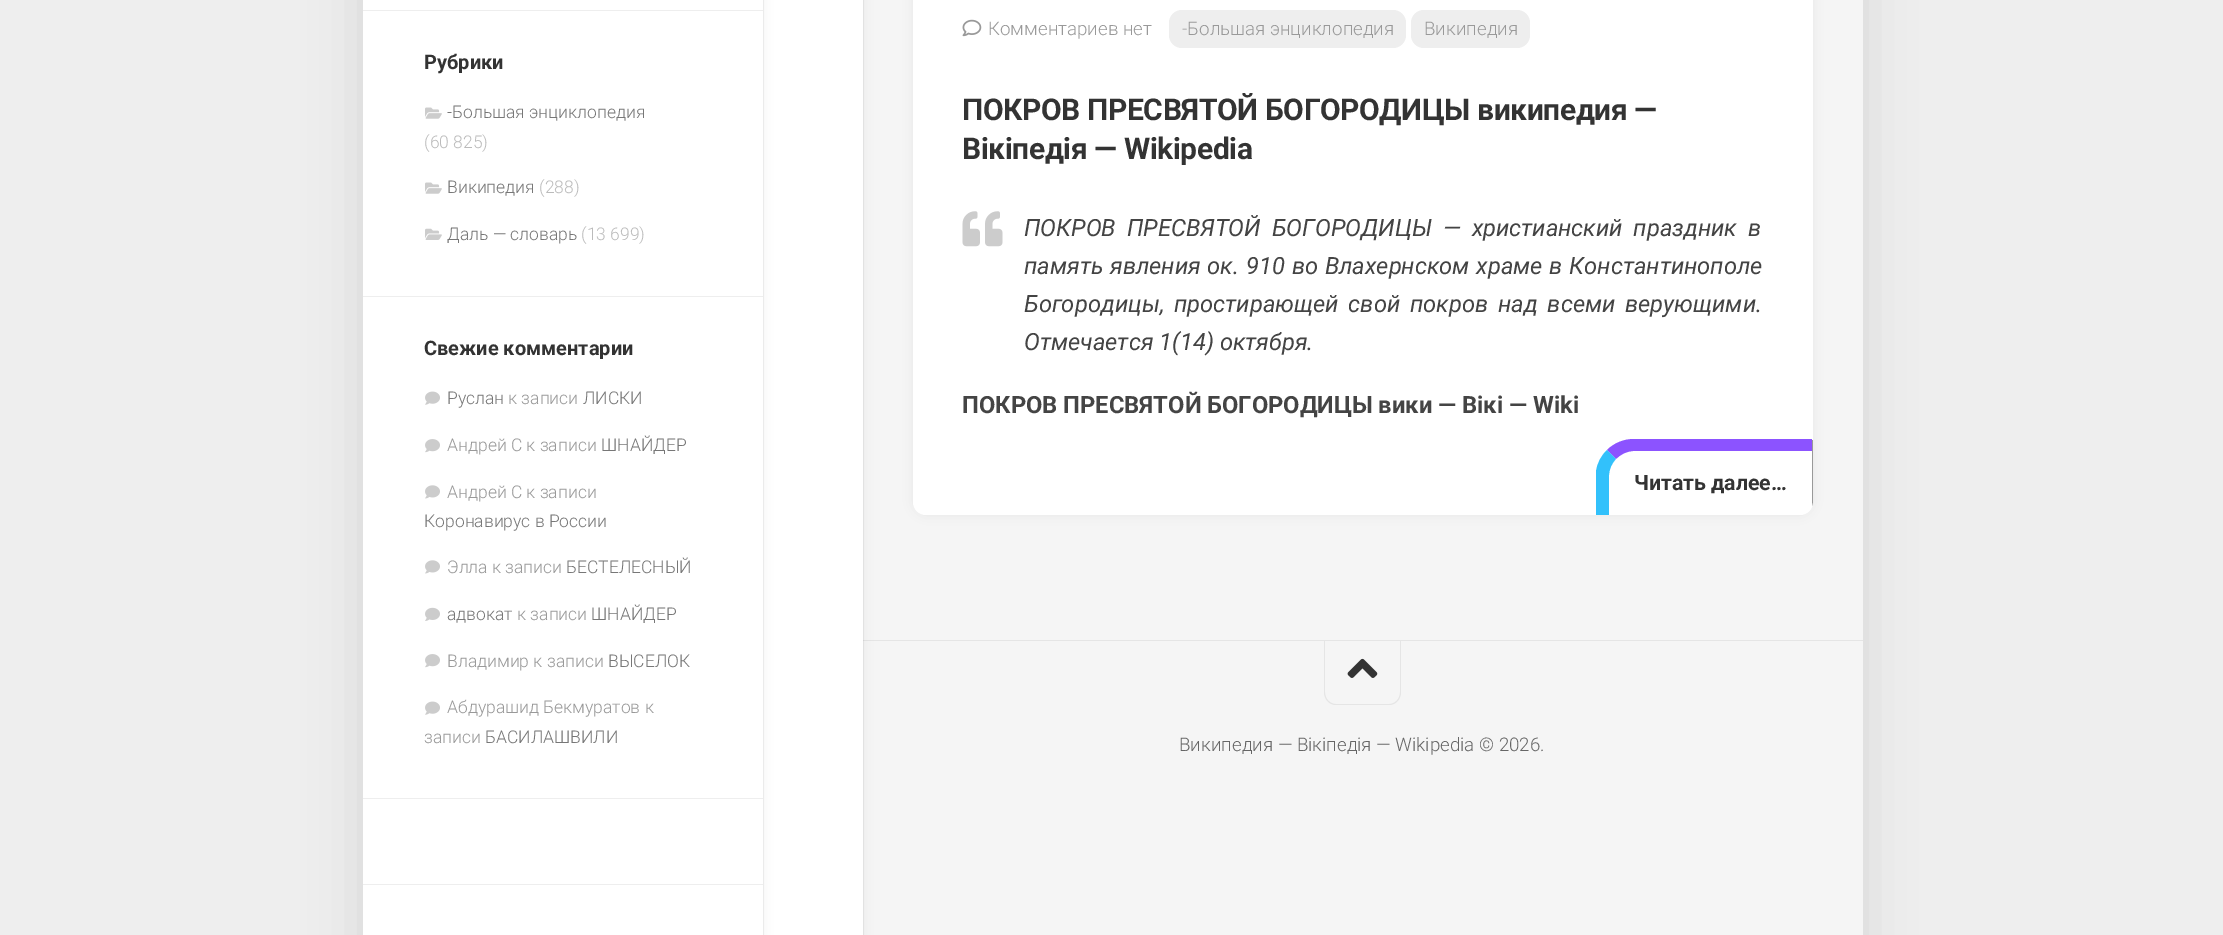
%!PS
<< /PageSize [2223 935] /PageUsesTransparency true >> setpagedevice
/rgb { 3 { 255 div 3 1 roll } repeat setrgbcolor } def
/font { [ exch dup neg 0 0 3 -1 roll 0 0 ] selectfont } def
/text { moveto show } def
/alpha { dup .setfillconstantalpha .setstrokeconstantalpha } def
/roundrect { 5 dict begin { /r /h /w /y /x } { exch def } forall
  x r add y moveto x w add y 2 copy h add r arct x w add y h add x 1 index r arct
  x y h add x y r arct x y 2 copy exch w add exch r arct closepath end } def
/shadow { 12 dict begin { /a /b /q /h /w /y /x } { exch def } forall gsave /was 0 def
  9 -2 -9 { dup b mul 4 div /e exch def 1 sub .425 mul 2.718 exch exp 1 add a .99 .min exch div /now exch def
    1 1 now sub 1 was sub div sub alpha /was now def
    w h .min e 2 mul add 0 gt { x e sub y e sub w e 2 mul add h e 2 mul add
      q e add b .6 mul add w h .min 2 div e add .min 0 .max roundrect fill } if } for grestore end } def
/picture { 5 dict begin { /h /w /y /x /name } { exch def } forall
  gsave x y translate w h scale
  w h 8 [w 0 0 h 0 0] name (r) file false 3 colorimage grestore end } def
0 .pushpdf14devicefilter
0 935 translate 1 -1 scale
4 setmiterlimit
238 238 238 rgb
0 0 2223 935 rectfill
0 0 0 rgb
363 -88 1500 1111 13 25 0.1 shadow
245 245 245 rgb
864 0 999 935 rectfill
233 233 233 rgb
863 0 1 935 rectfill
229 229 229 rgb
863 640 1000 1 rectfill
218 218 218 rgb
863 640 1 1 rectfill
0 0 0 rgb
763 -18 100 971 0 6 0.05 shadow
255 255 255 rgb
763 0 100 935 rectfill
0.05 alpha
0 0 0 rgb
763 0 1 935 rectfill
gsave
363 -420 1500 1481 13 roundrect clip newpath
1 alpha
363 -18 400 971 0 6 0.05 shadow
grestore
1 alpha
255 255 255 rgb
363 0 400 935 rectfill
238 238 238 rgb
363 10 400 1 rectfill
(img_01.rgb) 425 107 17 12 picture
(img_01.rgb) 425 182 17 12 picture
(img_02.rgb) 425 228 17 12 picture
363 296 400 1 rectfill
(img_03.rgb) 425 391 15 14 picture
(img_04.rgb) 425 439 15 14 picture
(img_05.rgb) 425 485 15 14 picture
(img_05.rgb) 425 560 15 14 picture
(img_06.rgb) 425 607 15 14 picture
(img_04.rgb) 425 654 15 14 picture
(img_03.rgb) 425 701 15 14 picture
363 798 400 1 rectfill
363 884 400 1 rectfill
0 0 0 rgb
913 -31 900 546 13 6 0.05 shadow
255 255 255 rgb
913 -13 900 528 13 roundrect fill
(img_07.rgb) 962 19 20 18 picture
238 238 238 rgb
1169 10 237 38 13 roundrect fill
1411 10 119 38 13 roundrect fill
(img_08.rgb) 962 211 41 36 picture
153 153 153 rgb
1597 472 moveto -1 6 rlineto 0 37 rlineto closepath 1812 506 moveto 1 -4 rlineto 0 -62 rlineto -1 0 rlineto closepath eofill
140 83 255 rgb
1634 439 moveto 178 0 rlineto 0 12 rlineto -178 0 rlineto -7 0 -13 3 -18 8 rcurveto -9 -9 rlineto 7 -7 17 -11 27 -11 rcurveto closepath fill
50 193 251 rgb
1596 515 moveto 13 0 rlineto 0 -39 rlineto 0 -7 3 -13 7 -17 rcurveto -9 -9 rlineto -6 6 -10 13 -11 22 rcurveto closepath fill
229 229 229 rgb
1324 641 moveto 77 0 rlineto 0 51 rlineto 0 7 -5 13 -12 13 rcurveto -53 0 rlineto -7 0 -12 -6 -12 -13 rcurveto closepath 1325 641 moveto 75 0 rlineto 0 51 rlineto 0 7 -5 12 -11 12 rcurveto -53 0 rlineto -6 0 -11 -5 -11 -12 rcurveto closepath eofill
(img_09.rgb) 1347 658 31 20 picture
/Roboto-Bold 20 font
51 51 51 rgb
(Рубрики) 424 69 text
/Roboto-Light 17.5 font
119 119 119 rgb
(-Большая энциклопедия) 447 118 text
187 187 187 rgb
(\(60 825\)) 424 148 text
119 119 119 rgb
(Википедия) 447 193 text
187 187 187 rgb
(\(288\)) 539 193 text
119 119 119 rgb
(Даль — словарь) 447 240 text
187 187 187 rgb
(\(13 699\)) 581 240 text
/Roboto-Bold 20 font
51 51 51 rgb
(Свежие комментарии) 424 355 text
/Roboto-Light 17.5 font
119 119 119 rgb
(Руслан) 447 404 text
153 153 153 rgb
(к записи) 508 404 text
119 119 119 rgb
(ЛИСКИ) 583 404 text
153 153 153 rgb
(Андрей С к записи) 447 451 text
119 119 119 rgb
(ШНАЙДЕР) 601 451 text
153 153 153 rgb
(Андрей С к записи) 447 498 text
119 119 119 rgb
(Коронавирус в России) 424 527 text
153 153 153 rgb
(Элла к записи) 447 573 text
119 119 119 rgb
(БЕСТЕЛЕСНЫЙ) 566 573 text
(адвокат) 447 620 text
153 153 153 rgb
(к записи) 517 620 text
119 119 119 rgb
(ШНАЙДЕР) 591 620 text
153 153 153 rgb
(Владимир к записи) 447 667 text
119 119 119 rgb
(ВЫСЕЛОК) 608 667 text
153 153 153 rgb
(Абдурашид Бекмуратов к) 447 713 text
(записи) 424 743 text
119 119 119 rgb
(БАСИЛАШВИЛИ) 485 743 text
/Roboto-Light 18.75 font
153 153 153 rgb
(Комментариев нет) 988 35 text
(-Большая энциклопедия) 1182 35 text
(Википедия) 1424 35 text
/Roboto-Bold 30 font
51 51 51 rgb
962 120 moveto -0.4 0 (ПОКРОВ ПРЕСВЯТОЙ БОГОРОДИЦЫ википедия —) ashow
962 159 moveto -0.4 0 (Вікіпедія — Wikipedia) ashow
/Roboto-Italic 23.75 font
68 68 68 rgb
1024 236 moveto 5 0 32 (ПОКРОВ ПРЕСВЯТОЙ БОГОРОДИЦЫ — христианский праздник в) widthshow
1024 274 moveto 1 0 32 (память явления ок. 910 во Влахернском храме в Константинополе) widthshow
1024 312 moveto 4 0 32 (Богородицы, простирающей свой покров над всеми верующими.) widthshow
(Отмечается 1\(14\) октября.) 1024 350 text
/Roboto-Bold 23.75 font
(ПОКРОВ ПРЕСВЯТОЙ БОГОРОДИЦЫ вики — Вікі — Wiki) 962 413 text
/Roboto-Bold 21.25 font
51 51 51 rgb
(Читать далее…) 1634 490 text
/Roboto-Light 18.75 font
102 102 102 rgb
(Википедия — Вікіпедія — Wikipedia © 2026.) 1179 751 text
.poppdf14devicefilter showpage
